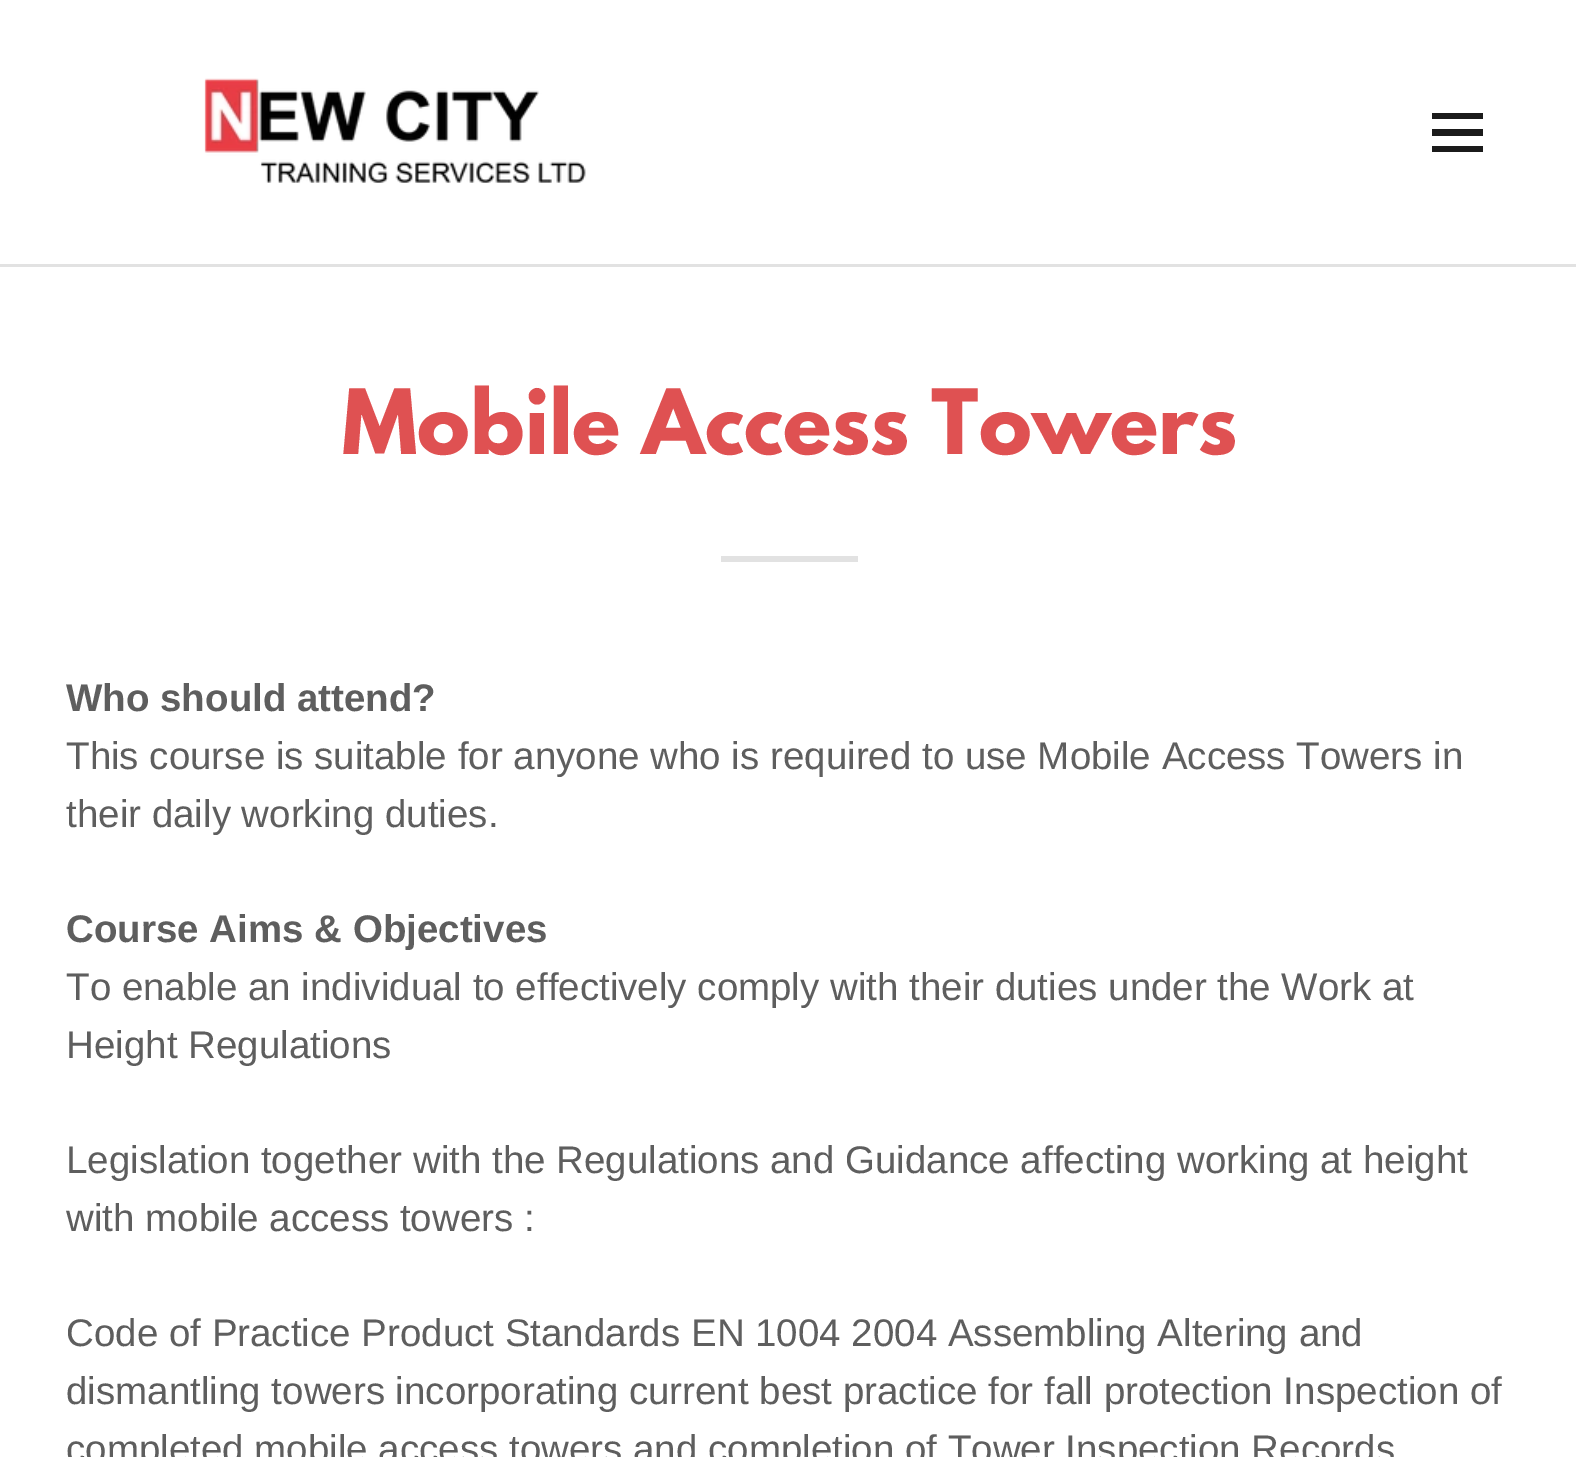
%!PS
<< /PageSize [1576 1457] >> setpagedevice
/rgb { 3 { 255 div 3 1 roll } repeat setrgbcolor } def
/font { [ exch dup neg 0 0 3 -1 roll 0 0 ] selectfont } def
/text { moveto show } def
/picture { 5 dict begin { /h /w /y /x /name } { exch def } forall
  gsave x y translate w h scale
  w h 8 [w 0 0 h 0 0] name (r) file false 3 colorimage grestore end } def
0 1457 translate 1 -1 scale
4 setmiterlimit
255 255 255 rgb
0 0 1576 1457 rectfill
(img_01.rgb) 204 78 382 105 picture
27 27 27 rgb
1432 113 51 6 rectfill
1432 129 51 7 rectfill
1432 146 51 6 rectfill
226 226 226 rgb
0 264 1576 3 rectfill
721 556 137 6 rectfill
/LeagueSpartan-Bold 79.75 font
223 81 82 rgb
(Mobile Access Towers) 342 454 text
/LiberationSans-Bold 38.5 font
94 94 94 rgb
(Who should attend?) 66 711 text
/LiberationSans-Regular 38.5 font
(This course is suitable for anyone who is required to use Mobile Access Towers in) 66 769 text
(their daily working duties.) 66 827 text
/LiberationSans-Bold 38.5 font
(Course Aims & Objectives) 66 942 text
/LiberationSans-Regular 38.5 font
(To enable an individual to effectively comply with their duties under the Work at) 66 1000 text
(Height Regulations) 66 1058 text
(Legislation together with the Regulations and Guidance affecting working at height) 66 1173 text
(with mobile access towers :) 66 1231 text
(Code of Practice Product Standards EN 1004 2004 Assembling Altering and) 66 1346 text
(dismantling towers incorporating current best practice for fall protection Inspection of) 66 1404 text
(completed mobile access towers and completion of Tower Inspection Records) 66 1462 text
showpage
